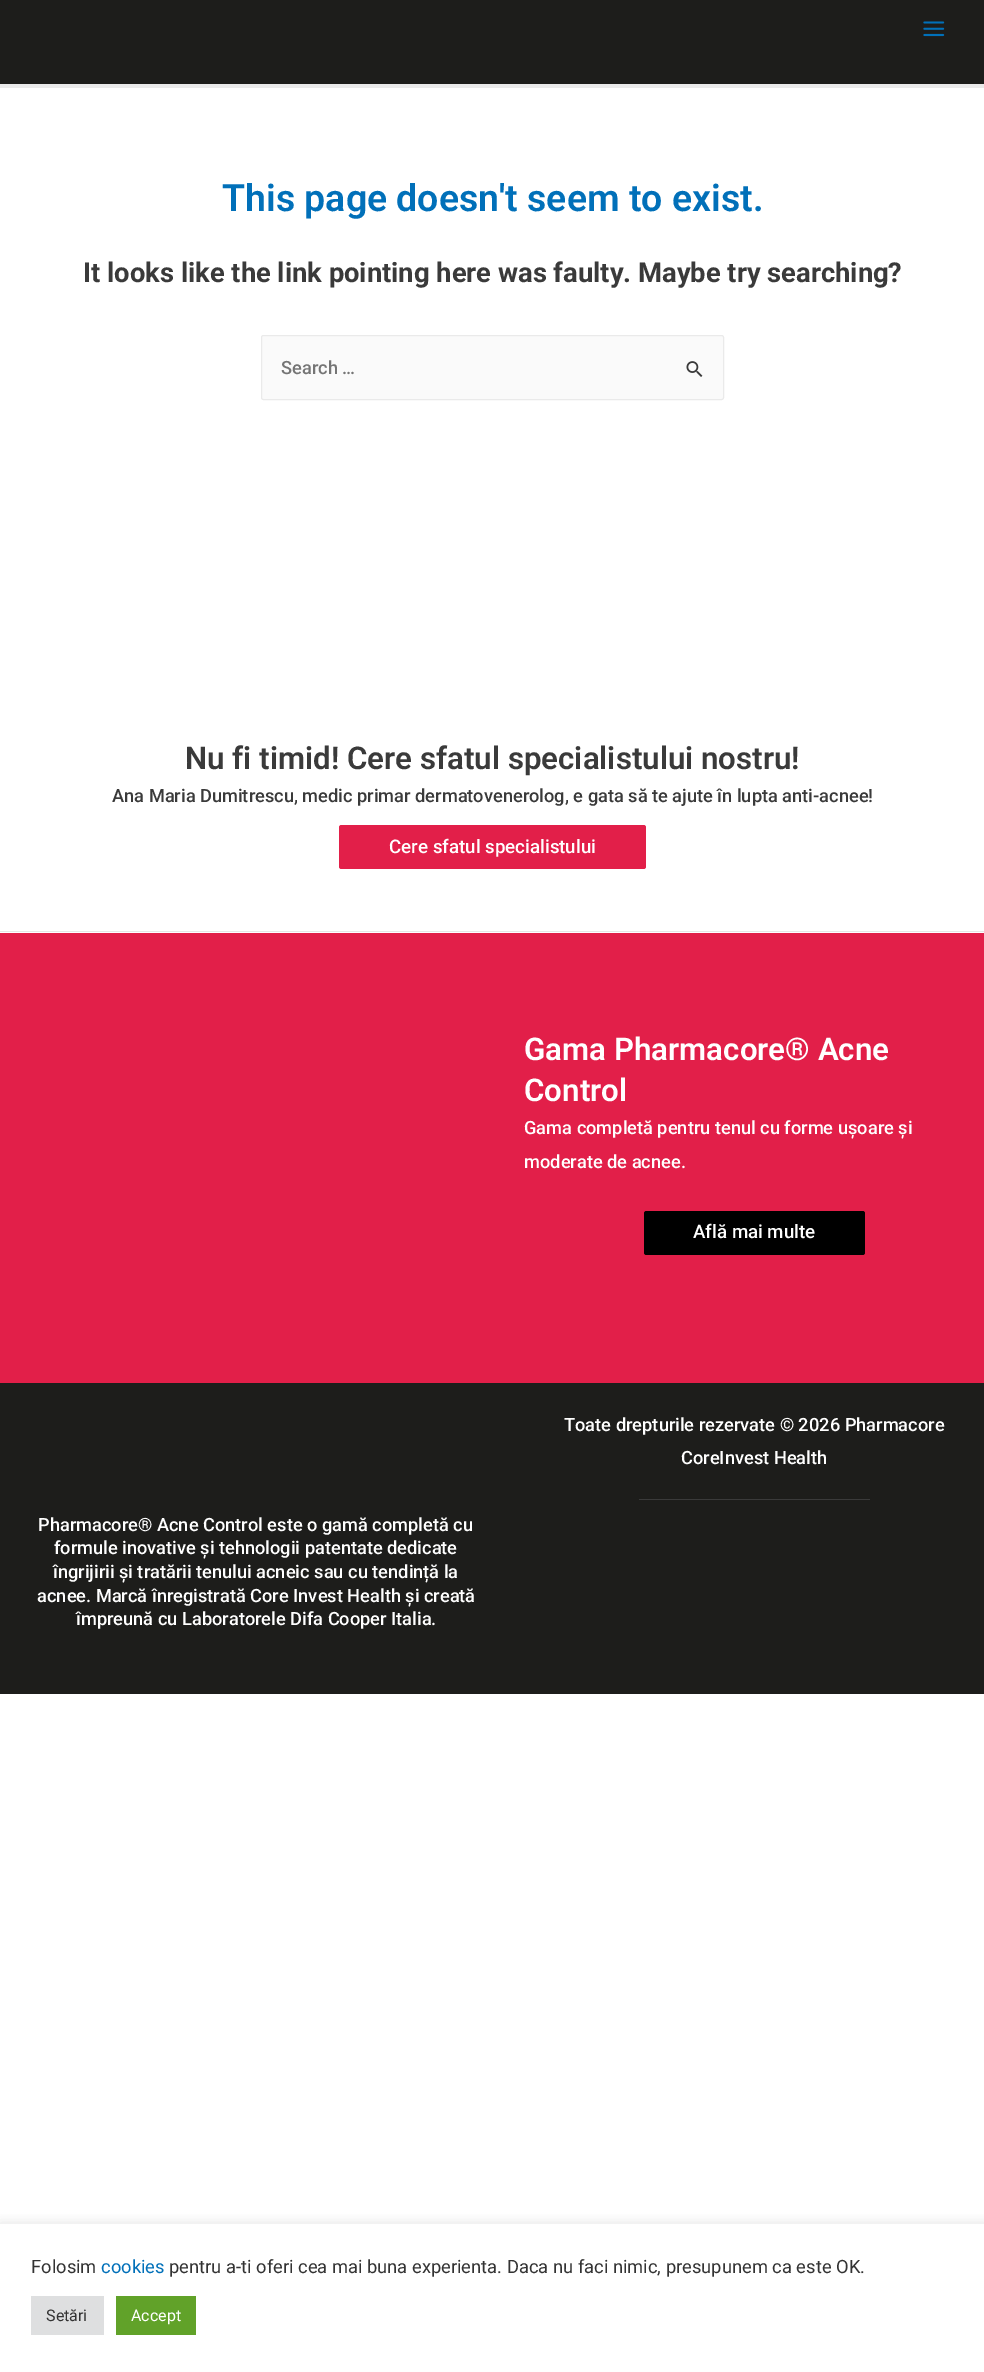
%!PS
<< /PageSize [984 2372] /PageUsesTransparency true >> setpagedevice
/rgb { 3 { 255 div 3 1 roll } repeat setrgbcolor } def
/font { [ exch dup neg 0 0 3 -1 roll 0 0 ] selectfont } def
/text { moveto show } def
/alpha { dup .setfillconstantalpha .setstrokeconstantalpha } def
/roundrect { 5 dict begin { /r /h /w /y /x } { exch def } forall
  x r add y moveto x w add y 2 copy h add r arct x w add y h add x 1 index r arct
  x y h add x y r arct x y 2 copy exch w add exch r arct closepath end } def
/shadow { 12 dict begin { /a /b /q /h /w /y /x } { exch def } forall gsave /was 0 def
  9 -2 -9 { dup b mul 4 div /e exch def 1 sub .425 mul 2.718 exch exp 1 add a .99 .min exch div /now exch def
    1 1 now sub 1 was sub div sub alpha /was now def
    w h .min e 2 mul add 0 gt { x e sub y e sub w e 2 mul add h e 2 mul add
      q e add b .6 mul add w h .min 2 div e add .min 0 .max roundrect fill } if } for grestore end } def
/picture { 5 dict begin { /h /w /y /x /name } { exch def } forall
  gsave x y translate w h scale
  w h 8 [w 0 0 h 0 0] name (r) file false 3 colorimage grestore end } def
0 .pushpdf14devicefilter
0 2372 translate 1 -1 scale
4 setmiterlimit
255 255 255 rgb
0 0 984 2372 rectfill
29 29 27 rgb
0 0 984 84 rectfill
234 234 234 rgb
0 84 984 4 rectfill
(img_01.rgb) 923 21 22 16 picture
250 250 250 rgb
261.5 335.5 462 64 2 roundrect gsave fill grestore
234 234 234 rgb
stroke
(img_02.rgb) 686 361 17 16 picture
226 31 73 rgb
339 825 307 44 2.5 roundrect fill
0 933 984 450 rectfill
230 230 230 rgb
0 931 984 1 rectfill
0 0 0 rgb
644 1211 221 44 2.5 roundrect fill
29 29 27 rgb
0 1383 984 311 rectfill
58 58 58 rgb
639 1499 231 1 rectfill
gsave
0 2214 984 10 rectclip
172 171 171 rgb
0 2223 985 148 0 6 0.3 shadow
grestore
222 223 224 rgb
31 2296 73 39 rectfill
97 162 41 rgb
116 2296 80 39 rectfill
/Roboto-SemiBold 37.5 font
1 112 185 rgb
(This page doesn't seem to exist.) 222 211 text
/Roboto-Bold 27.35 font
58 58 58 rgb
(It looks like the link pointing here was faulty. Maybe try searching?) 83 282 text
/Roboto-Medium 18.25 font
117 117 117 rgb
(Search …) 281 374 text
/Roboto-SemiBold 31.25 font
58 58 58 rgb
(Nu fi timid! Cere sfatul specialistului nostru!) 185 769 text
/Roboto-Medium 18.25 font
(Ana Maria Dumitrescu, medic primar dermatovenerolog, e gata să te ajute în lupta anti-acnee!) 112 802 text
/Roboto-Medium 18.75 font
255 255 255 rgb
(Cere sfatul specialistului) 389 853 text
/Roboto-SemiBold 31.25 font
(Gama Pharmacore® Acne) 524 1060 text
(Control) 524 1101 text
/Roboto-Medium 18.25 font
(Gama completă pentru tenul cu forme ușoare și) 524 1134 text
(moderate de acnee.) 524 1168 text
/Roboto-Medium 18.75 font
(Află mai multe) 693 1238 text
/Roboto-Medium 18.25 font
(Toate drepturile rezervate © 2026 Pharmacore) 564 1431 text
(CoreInvest Health) 681 1464 text
(Pharmacore® Acne Control este o gamă completă cu) 38 1531 text
(formule inovative și tehnologii patentate dedicate) 54 1554 text
(îngrijirii și tratării tenului acneic sau cu tendință la) 53 1578 text
(acnee. Marcă înregistrată Core Invest Health și creată) 37 1602 text
(împreună cu Laboratorele Difa Cooper Italia.) 76 1625 text
/Roboto-Regular 18.35 font
51 51 51 rgb
(Folosim) 31 2273 text
1 112 185 rgb
(cookies) 101 2273 text
51 51 51 rgb
(pentru a-ti oferi cea mai buna experienta. Daca nu faci nimic, presupunem ca este OK.) 169 2273 text
/Roboto-Regular 16 font
(Setări) 46 2321 text
255 255 255 rgb
(Accept) 131 2321 text
.poppdf14devicefilter showpage
